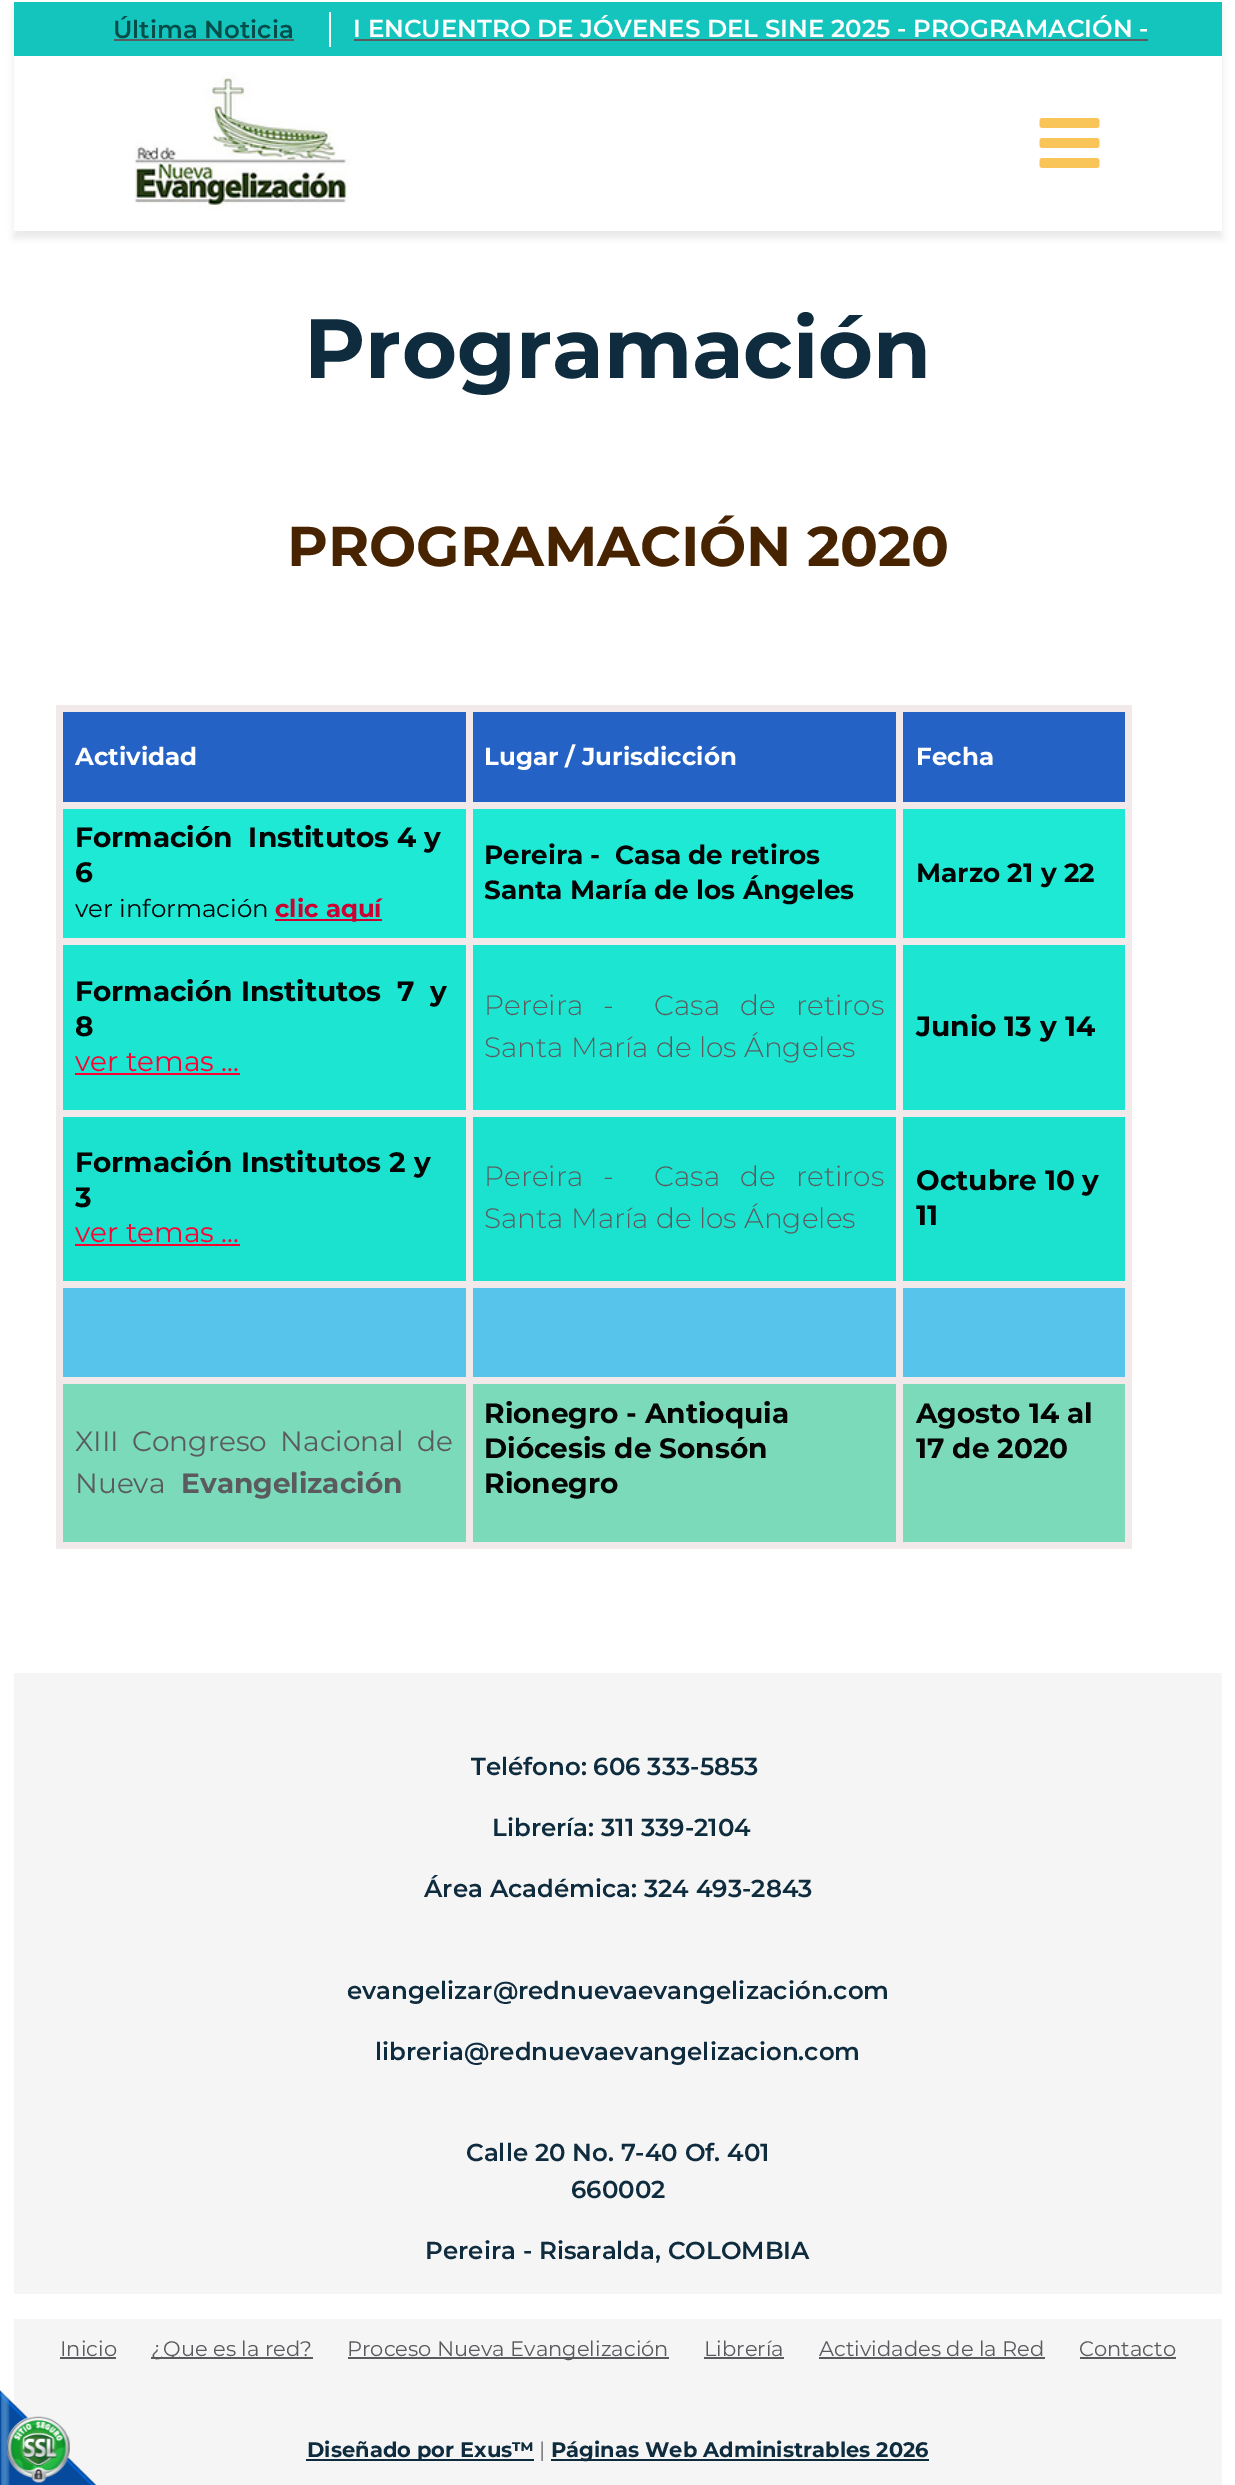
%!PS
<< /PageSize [1235 2485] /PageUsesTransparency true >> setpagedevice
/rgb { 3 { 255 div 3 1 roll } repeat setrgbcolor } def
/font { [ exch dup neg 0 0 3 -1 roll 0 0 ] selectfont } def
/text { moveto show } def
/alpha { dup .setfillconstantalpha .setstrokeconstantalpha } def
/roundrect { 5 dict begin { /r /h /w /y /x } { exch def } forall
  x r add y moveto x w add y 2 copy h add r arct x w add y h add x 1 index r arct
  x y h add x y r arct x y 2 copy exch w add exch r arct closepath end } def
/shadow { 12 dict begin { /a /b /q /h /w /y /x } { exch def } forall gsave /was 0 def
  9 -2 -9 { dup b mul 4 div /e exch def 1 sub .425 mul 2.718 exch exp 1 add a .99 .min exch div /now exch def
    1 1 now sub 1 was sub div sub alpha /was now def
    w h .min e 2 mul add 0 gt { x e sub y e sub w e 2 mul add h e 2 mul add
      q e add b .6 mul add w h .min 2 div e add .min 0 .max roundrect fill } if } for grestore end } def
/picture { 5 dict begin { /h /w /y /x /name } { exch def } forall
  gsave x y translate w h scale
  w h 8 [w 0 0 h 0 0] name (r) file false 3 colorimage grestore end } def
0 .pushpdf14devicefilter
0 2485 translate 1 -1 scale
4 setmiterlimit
255 255 255 rgb
0 0 1235 2485 rectfill
0 0 0 rgb
14 9 1208 229 0 3.5 0.08 shadow
255 255 255 rgb
14 56 1208 175 rectfill
20 197 190 rgb
14 2 1208 54 rectfill
91 91 95 rgb
114 39 180 2 rectfill
255 255 255 rgb
329 12 2 35 rectfill
91 91 95 rgb
354 39 794 2 rectfill
(img_01.rgb) 134 72 219 138 picture
(img_02.rgb) 1039 118 61 50 picture
36 98 198 rgb
63 712 403 90 rectfill
242 234 234 rgb
896 705 236 7 rectfill
896 802 236 7 rectfill
896 938 236 7 rectfill
896 1110 236 7 rectfill
896 1281 236 7 rectfill
896 1377 236 7 rectfill
1125 1377 7 172 rectfill
896 1542 236 7 rectfill
896 1377 7 172 rectfill
466 1377 437 7 rectfill
896 1281 7 103 rectfill
466 1281 437 7 rectfill
896 1110 7 178 rectfill
466 1110 437 7 rectfill
896 938 7 179 rectfill
466 938 437 7 rectfill
896 802 7 143 rectfill
466 802 437 7 rectfill
896 705 7 104 rectfill
466 705 437 7 rectfill
466 1542 437 7 rectfill
466 1377 7 172 rectfill
56 1377 417 7 rectfill
466 1281 7 103 rectfill
56 1281 417 7 rectfill
466 1110 7 178 rectfill
56 1110 417 7 rectfill
466 938 7 179 rectfill
56 938 417 7 rectfill
466 802 7 143 rectfill
56 802 417 7 rectfill
466 705 7 104 rectfill
56 705 417 7 rectfill
56 1542 417 7 rectfill
56 1377 7 172 rectfill
56 1281 7 103 rectfill
56 1110 7 178 rectfill
56 938 7 179 rectfill
56 802 7 143 rectfill
56 705 7 104 rectfill
36 98 198 rgb
473 712 423 90 rectfill
903 712 222 90 rectfill
242 234 234 rgb
1125 1281 7 103 rectfill
1125 1110 7 178 rectfill
1125 938 7 179 rectfill
1125 802 7 143 rectfill
1125 705 7 104 rectfill
29 233 213 rgb
63 809 403 129 rectfill
204 0 51 rgb
275 919 107 2 rectfill
29 233 213 rgb
473 809 423 129 rectfill
903 809 222 129 rectfill
28 229 209 rgb
63 945 403 165 rectfill
255 0 51 rgb
75 1073 165 2 rectfill
28 229 209 rgb
473 945 423 165 rectfill
903 945 222 165 rectfill
26 226 206 rgb
63 1117 403 164 rectfill
255 0 51 rgb
75 1244 165 2 rectfill
26 226 206 rgb
473 1117 423 164 rectfill
903 1117 222 164 rectfill
86 196 235 rgb
63 1288 403 89 rectfill
473 1288 423 89 rectfill
903 1288 222 89 rectfill
122 218 185 rgb
63 1384 403 158 rectfill
473 1384 423 158 rectfill
903 1384 222 158 rectfill
245 245 245 rgb
14 1673 1208 621 rectfill
14 2319 1208 166 rectfill
(img_03.rgb) 0 2390 97 95 picture
91 91 95 rgb
60 2357 56 2 rectfill
151 2357 162 2 rectfill
348 2357 321 2 rectfill
704 2357 80 2 rectfill
819 2357 226 2 rectfill
1080 2357 96 2 rectfill
14 44 62 rgb
306 2459 228 2 rectfill
551 2459 378 2 rectfill
/Montserrat-SemiBold 24.5 font
3 78 75 rgb
(Última Noticia) 113 38 text
255 255 255 rgb
(I ENCUENTRO DE JÓVENES DEL SINE 2025 - PROGRAMACIÓN -) 353 37 text
/Montserrat-Bold 84 font
14 44 62 rgb
(Programación) 304 378 text
/Montserrat-Bold 56 font
71 35 0 rgb
(PROGRAMACIÓN 2020) 287 566 text
/Montserrat-Bold 24.5 font
255 255 255 rgb
(Actividad) 75 765 text
(Lugar / Jurisdicción) 484 765 text
(Fecha) 916 765 text
/Montserrat-Bold 28 font
5 5 5 rgb
(Formación  Institutos 4 y) 75 847 text
(6) 75 882 text
/Montserrat-Regular 24.5 font
(ver información) 75 917 text
/Montserrat-Bold 24.5 font
204 0 51 rgb
(clic aquí) 275 917 text
/Montserrat-Bold 26.25 font
5 5 5 rgb
(Pereira -  Casa de retiros) 484 864 text
(Santa María de los Ángeles) 484 899 text
(Marzo 21 y 22) 916 882 text
/Montserrat-Bold 28 font
(Formación Institutos  7  y) 75 1001 text
(8) 75 1036 text
/Montserrat-Regular 28 font
255 0 51 rgb
(ver temas ...) 75 1071 text
/Montserrat-Light 28 font
91 91 95 rgb
484 1015 moveto 13 0 32 (Pereira -  Casa de retiros) widthshow
(Santa María de los Ángeles) 484 1057 text
/Montserrat-Bold 28 font
5 5 5 rgb
(Junio 13 y 14) 916 1036 text
(Formación Institutos 2 y) 75 1172 text
(3) 75 1207 text
/Montserrat-Regular 28 font
255 0 51 rgb
(ver temas ...) 75 1242 text
/Montserrat-Light 28 font
91 91 95 rgb
484 1186 moveto 13 0 32 (Pereira -  Casa de retiros) widthshow
(Santa María de los Ángeles) 484 1228 text
/Montserrat-Bold 28 font
5 5 5 rgb
(Octubre 10 y) 916 1190 text
(11) 916 1225 text
/Montserrat-Regular 28 font
91 91 95 rgb
75 1451 moveto 6 0 32 (XIII Congreso Nacional de) widthshow
(Nueva) 75 1493 text
/Montserrat-Bold 28 font
(Evangelización) 181 1493 text
5 5 5 rgb
(Rionegro - Antioquia) 484 1423 text
(Diócesis de Sonsón) 484 1458 text
(Rionegro) 484 1493 text
(Agosto 14 al) 916 1423 text
(17 de 2020) 916 1458 text
/Montserrat-SemiBold 24.5 font
14 44 62 rgb
(Teléfono: 606 333-5853) 471 1775 text
(Librería: 311 339-2104) 492 1836 text
(Área Académica: 324 493-2843) 424 1897 text
(evangelizar@rednuevaevangelización.com) 347 1999 text
(libreria@rednuevaevangelizacion.com) 375 2060 text
(Calle 20 No. 7-40 Of. 401) 466 2161 text
(660002) 571 2198 text
(Pereira - Risaralda, COLOMBIA) 425 2259 text
/Montserrat-Regular 21 font
91 91 95 rgb
(Inicio) 60 2356 text
(¿Que es la red?) 151 2356 text
(Proceso Nueva Evangelización) 347 2356 text
(Librería) 704 2356 text
(Actividades de la Red) 819 2356 text
(Contacto) 1079 2356 text
/Montserrat-Bold 21 font
14 44 62 rgb
(Diseñado por Exus™) 307 2457 text
/Montserrat-Regular 21 font
91 91 95 rgb
(|) 539 2457 text
/Montserrat-Bold 21 font
14 44 62 rgb
(Páginas Web Administrables 2026) 551 2457 text
.poppdf14devicefilter showpage
